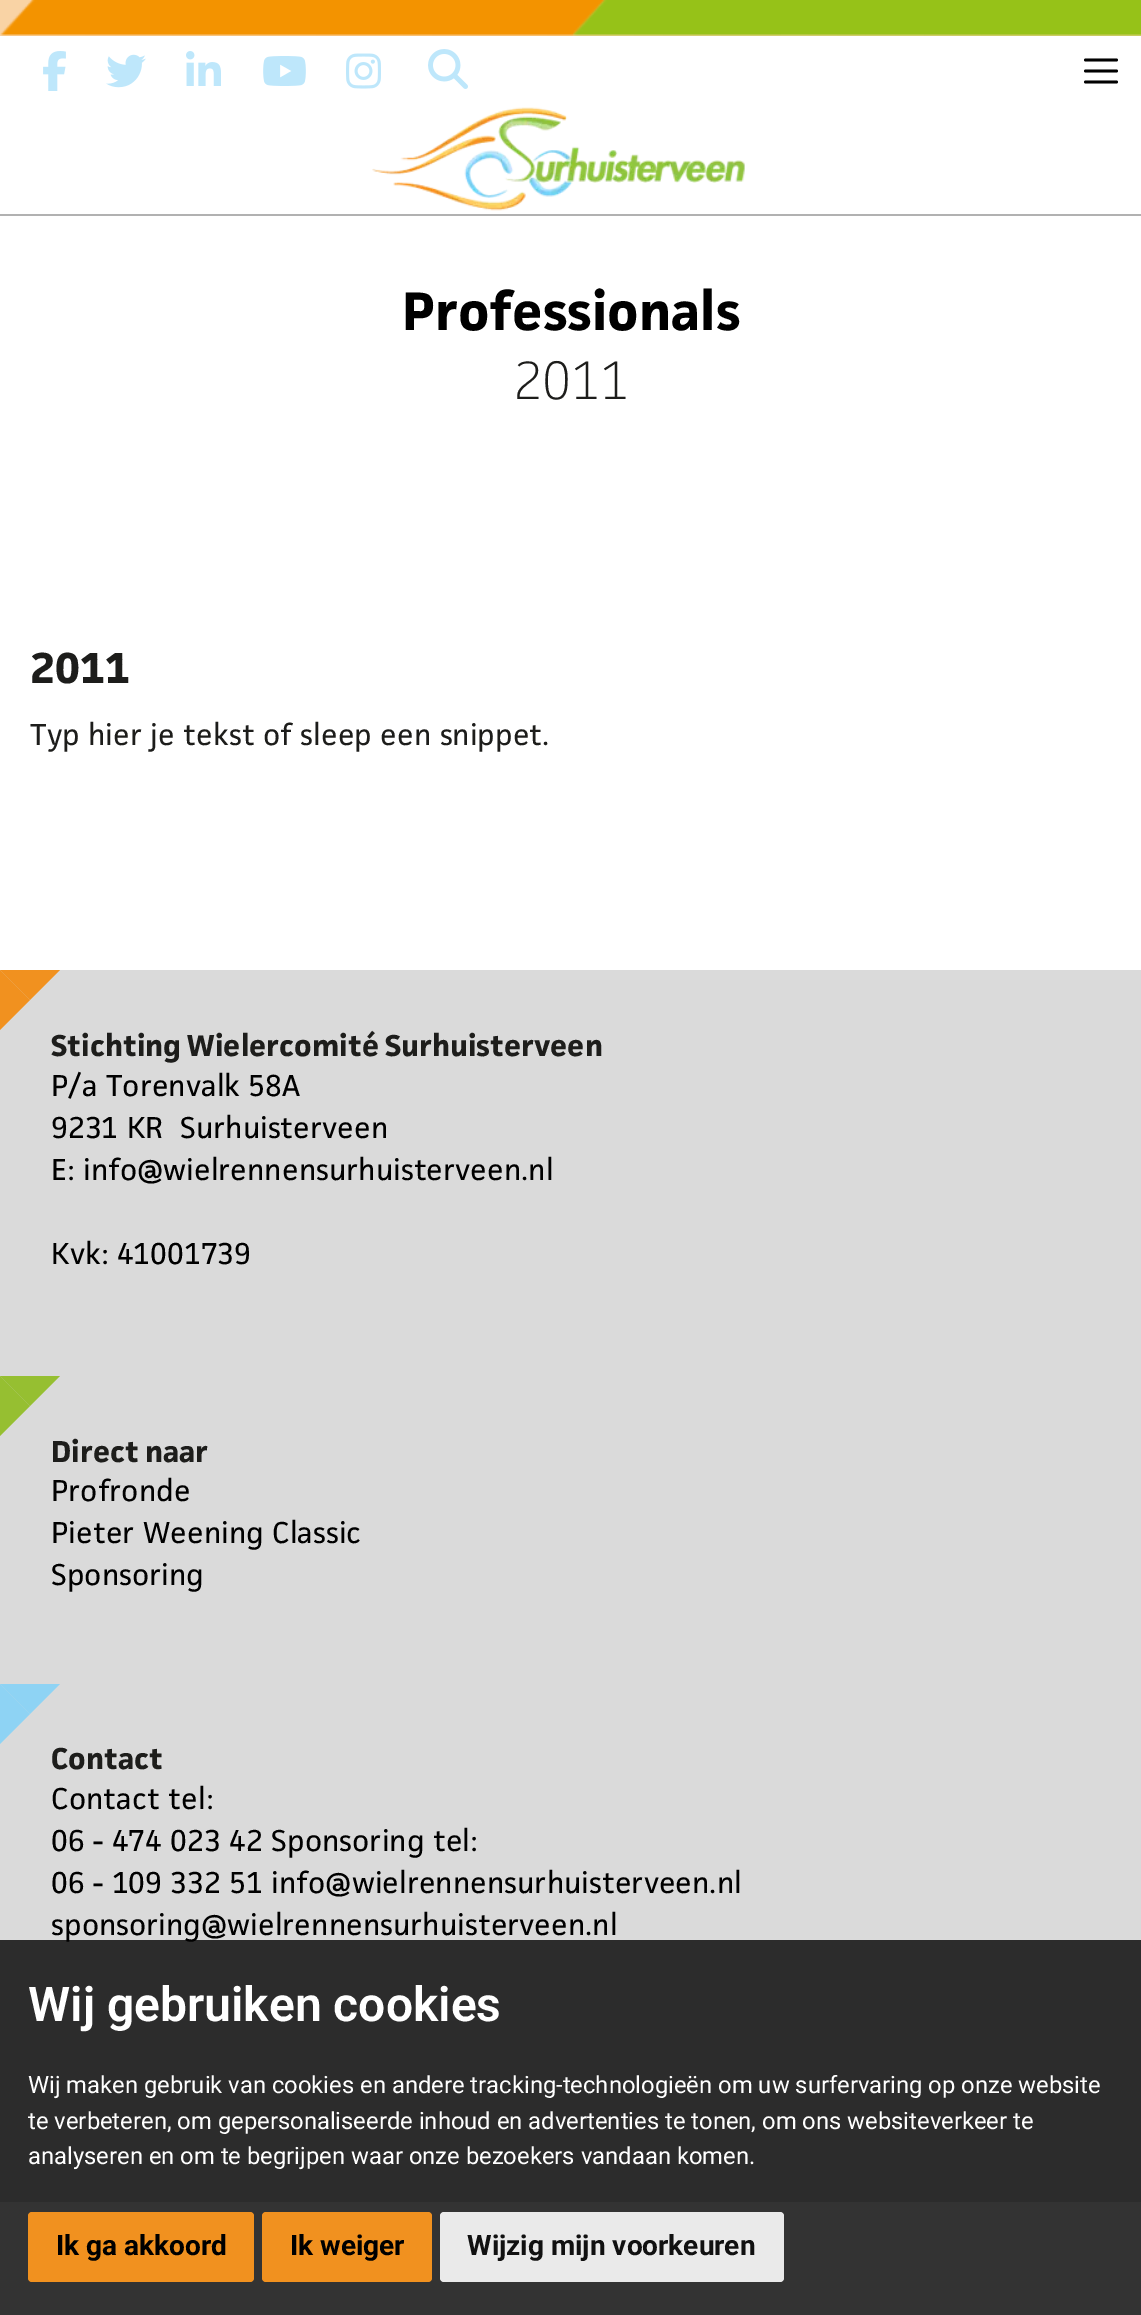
%!PS
<< /PageSize [1141 2315] /PageUsesTransparency true >> setpagedevice
/rgb { 3 { 255 div 3 1 roll } repeat setrgbcolor } def
/font { [ exch dup neg 0 0 3 -1 roll 0 0 ] selectfont } def
/text { moveto show } def
/alpha { dup .setfillconstantalpha .setstrokeconstantalpha } def
/roundrect { 5 dict begin { /r /h /w /y /x } { exch def } forall
  x r add y moveto x w add y 2 copy h add r arct x w add y h add x 1 index r arct
  x y h add x y r arct x y 2 copy exch w add exch r arct closepath end } def
/picture { 5 dict begin { /h /w /y /x /name } { exch def } forall
  gsave x y translate w h scale
  w h 8 [w 0 0 h 0 0] name (r) file false 3 colorimage grestore end } def
0 .pushpdf14devicefilter
0 2315 translate 1 -1 scale
4 setmiterlimit
255 255 255 rgb
0 0 1141 2315 rectfill
177 177 177 rgb
0 214 1141 2 rectfill
249 211 165 rgb
0 0 1141 36 rectfill
(img_01.rgb) 0 0 1141 36 picture
(img_02.rgb) 43 51 23 40 picture
(img_03.rgb) 106 54 40 34 picture
(img_04.rgb) 186 51 35 35 picture
(img_05.rgb) 263 56 43 30 picture
(img_06.rgb) 346 53 35 36 picture
(img_07.rgb) 428 49 40 40 picture
0 0 0 rgb
2.8 setlinewidth
1 setlinecap
1085.5 60 moveto 31 0 rlineto 1085.5 71 moveto 31 0 rlineto 1085.5 82 moveto 31 0 rlineto stroke
(img_08.rgb) 372 107 373 104 picture
218 218 218 rgb
0 970 1141 1232 rectfill
241 145 31 rgb
0 970 moveto 60 0 rlineto -30 30 rlineto closepath fill
0 1030 moveto 0 -60 rlineto 30 30 rlineto closepath fill
150 191 49 rgb
0 1376 moveto 60 0 rlineto -30 30 rlineto closepath fill
0 1436 moveto 0 -60 rlineto 30 30 rlineto closepath fill
142 211 244 rgb
0 1684 moveto 60 0 rlineto -30 30 rlineto closepath fill
0 1744 moveto 0 -60 rlineto 30 30 rlineto closepath fill
/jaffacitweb-Bold 50 font
0 0 0 rgb
(Professionals) 402 330 text
/jaffacitweb-Regular 50 font
29 29 27 rgb
(2011) 513 399 text
/jaffacitweb-Bold 40 font
(2011) 30 683 text
/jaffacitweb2-Regular 28 font
(Typ hier je tekst of sleep een snippet.) 30 745 text
/jaffacitweb-Bold 28 font
(Stichting Wielercomité Surhuisterveen) 51 1056 text
/jaffacitweb2-Regular 28 font
0 0 0 rgb
(P/a Torenvalk 58A) 51 1096 text
(9231 KR  Surhuisterveen) 51 1138 text
(E: info@wielrennensurhuisterveen.nl) 51 1180 text
(Kvk: 41001739) 51 1264 text
/jaffacitweb-Bold 28 font
29 29 27 rgb
(Direct naar) 51 1462 text
/jaffacitweb2-Regular 28 font
0 0 0 rgb
(Profronde) 51 1501 text
(Pieter Weening Classic) 51 1543 text
(Sponsoring) 51 1585 text
/jaffacitweb-Bold 28 font
29 29 27 rgb
(Contact) 51 1769 text
/jaffacitweb2-Regular 28 font
0 0 0 rgb
(Contact tel:) 51 1809 text
(06 - 474 023 42 Sponsoring tel:) 51 1851 text
(06 - 109 332 51 info@wielrennensurhuisterveen.nl) 51 1893 text
(sponsoring@wielrennensurhuisterveen.nl) 51 1935 text
0.8 alpha
0 1940 1141 375 rectfill
/Roboto-SemiBold 48 font
1 alpha
255 255 255 rgb
(Wij gebruiken cookies) 28 2021 text
/Roboto-Regular 23.8 font
(Wij maken gebruik van cookies en andere tracking-technologieën om uw surfervaring op onze website) 28 2093 text
(te verbeteren, om gepersonaliseerde inhoud en advertenties te tonen, om ons websiteverkeer te) 28 2129 text
(analyseren en om te begrijpen waar onze bezoekers vandaan komen.) 28 2164 text
241 145 31 rgb
28 2212 226 70 4 roundrect fill
/Roboto-Bold 28 font
0 0 0 rgb
(Ik ga akkoord) 56 2255 text
241 145 31 rgb
262 2212 170 70 4 roundrect fill
0 0 0 rgb
(Ik weiger) 290 2255 text
234 234 234 rgb
440 2212 344 70 4 roundrect fill
17 17 17 rgb
(Wijzig mijn voorkeuren) 467 2255 text
.poppdf14devicefilter showpage
